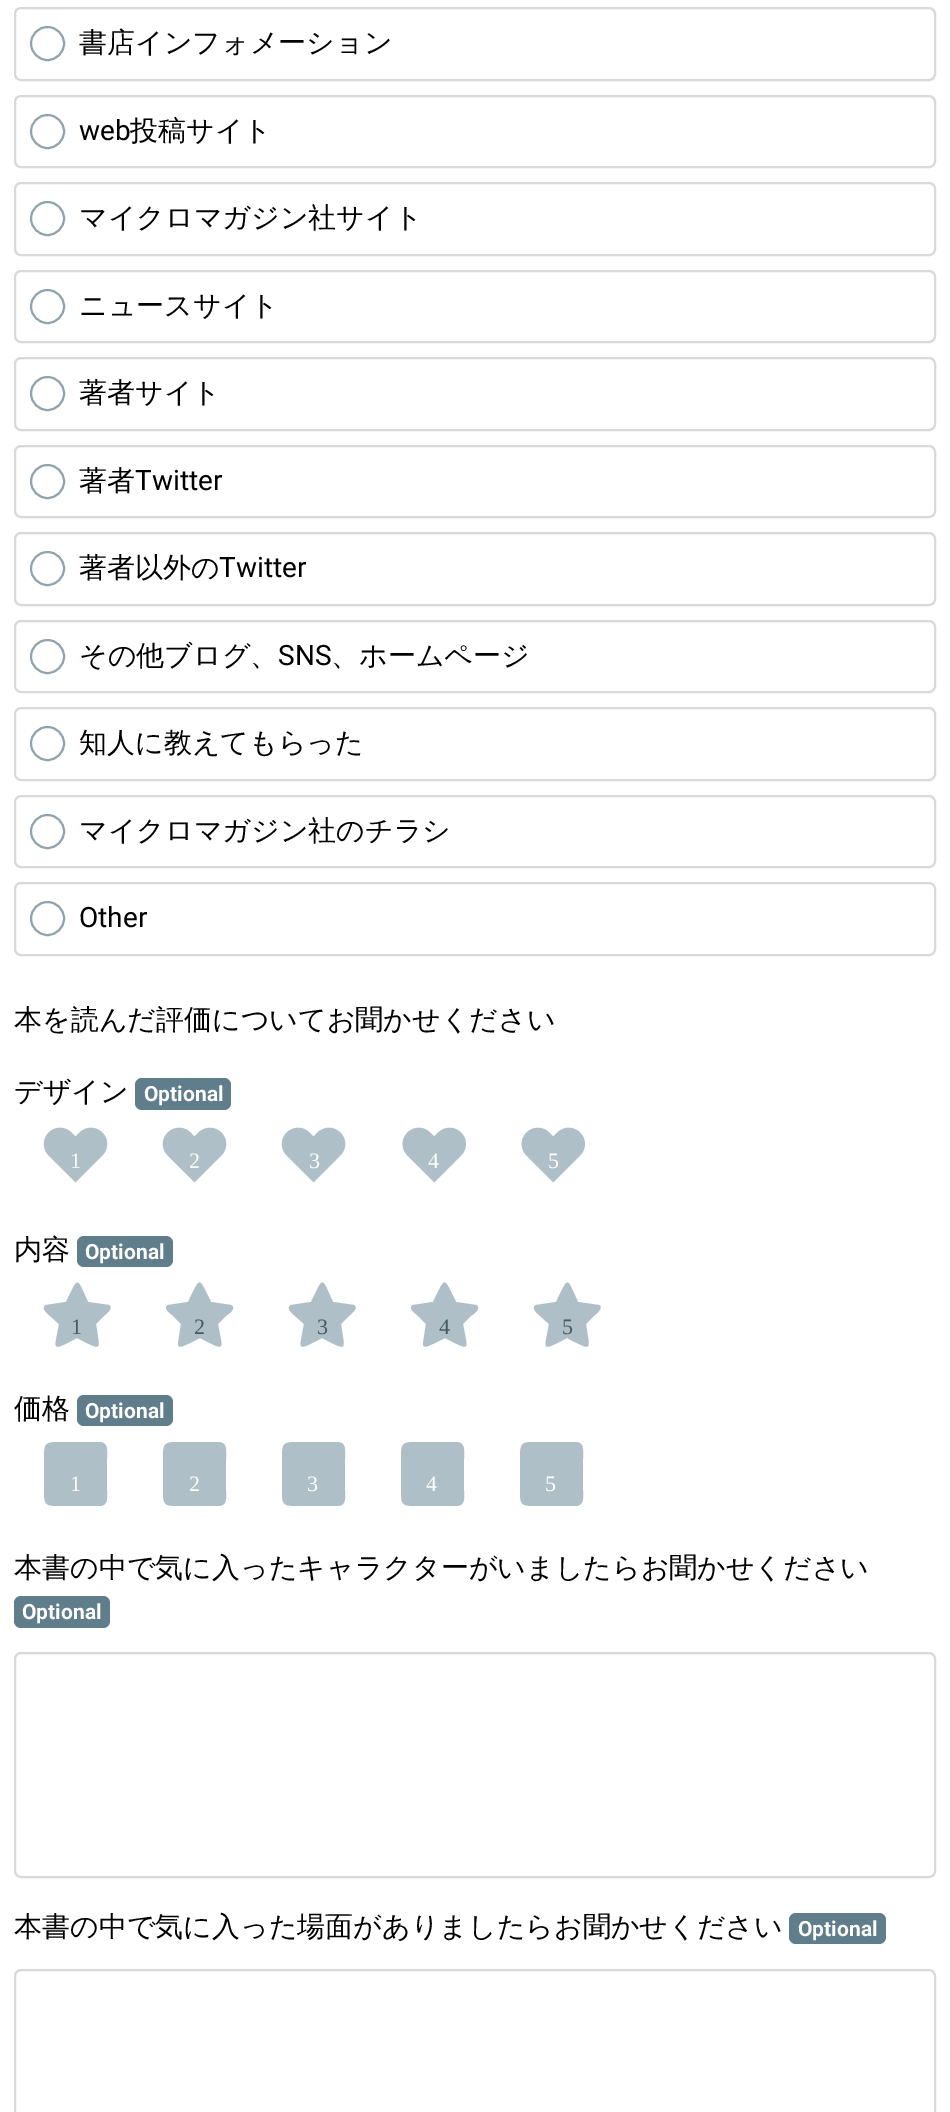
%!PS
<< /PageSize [950 2112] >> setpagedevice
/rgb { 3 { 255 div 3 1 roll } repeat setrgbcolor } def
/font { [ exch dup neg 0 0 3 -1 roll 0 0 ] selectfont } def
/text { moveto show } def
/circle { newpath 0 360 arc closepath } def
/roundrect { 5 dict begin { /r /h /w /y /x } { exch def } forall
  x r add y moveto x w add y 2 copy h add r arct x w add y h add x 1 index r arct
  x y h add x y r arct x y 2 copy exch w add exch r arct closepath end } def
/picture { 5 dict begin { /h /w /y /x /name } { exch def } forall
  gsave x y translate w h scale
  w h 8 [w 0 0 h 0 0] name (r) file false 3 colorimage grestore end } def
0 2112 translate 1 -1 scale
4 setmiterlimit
255 255 255 rgb
0 0 950 2112 rectfill
217 217 217 rgb
2 setlinewidth
15 8 920 72 6 roundrect stroke
144 164 174 rgb
47.5 43.5 16.5 circle stroke
217 217 217 rgb
15 96 920 71 6 roundrect stroke
144 164 174 rgb
47.5 131.5 16.5 circle stroke
217 217 217 rgb
15 183 920 72 6 roundrect stroke
144 164 174 rgb
47.5 218.5 16.5 circle stroke
217 217 217 rgb
15 271 920 71 6 roundrect stroke
144 164 174 rgb
47.5 306.5 16.5 circle stroke
217 217 217 rgb
15 358 920 72 6 roundrect stroke
144 164 174 rgb
47.5 393.5 16.5 circle stroke
217 217 217 rgb
15 446 920 71 6 roundrect stroke
144 164 174 rgb
47.5 481.5 16.5 circle stroke
217 217 217 rgb
15 533 920 72 6 roundrect stroke
144 164 174 rgb
47.5 568.5 16.5 circle stroke
217 217 217 rgb
15 621 920 71 6 roundrect stroke
144 164 174 rgb
47.5 656.5 16.5 circle stroke
217 217 217 rgb
15 708 920 72 6 roundrect stroke
144 164 174 rgb
47.5 743.5 16.5 circle stroke
217 217 217 rgb
15 796 920 71 6 roundrect stroke
144 164 174 rgb
47.5 831.5 16.5 circle stroke
217 217 217 rgb
15 883 920 72 6 roundrect stroke
144 164 174 rgb
47.5 918.5 16.5 circle stroke
96 125 139 rgb
135 1078 96 32 7 roundrect fill
(img_01.rgb) 43 1127 65 56 picture
(img_01.rgb) 162 1127 65 56 picture
(img_01.rgb) 281 1127 65 56 picture
(img_02.rgb) 402 1127 64 56 picture
(img_02.rgb) 521 1127 64 56 picture
77 1236 96 31 7 roundrect fill
174 191 199 rgb
66 1302 moveto 13 -26 10 -26 22 0 rcurveto 21 3 rlineto 5 3 -3 9 -4 10 rcurveto -9 9 rlineto 4 28 7 27 -19 14 rcurveto -26 13 -23 14 -18 -14 rcurveto -10 -9 rlineto -1 -1 -9 -7 -3 -10 rcurveto closepath fill
188 1302 moveto 13 -26 10 -26 23 0 rcurveto 20 3 rlineto 6 3 -2 9 -4 10 rcurveto -9 9 rlineto 5 28 8 27 -18 14 rcurveto -27 13 -23 14 -19 -14 rcurveto -9 -9 rlineto -1 -1 -10 -7 -4 -10 rcurveto closepath fill
311 1302 moveto 13 -26 10 -26 22 0 rcurveto 21 3 rlineto 5 3 -3 9 -4 10 rcurveto -9 9 rlineto 4 28 7 27 -19 14 rcurveto -26 13 -23 14 -18 -14 rcurveto -10 -9 rlineto -1 -1 -9 -7 -3 -10 rcurveto closepath fill
433 1302 moveto 13 -26 10 -26 23 0 rcurveto 20 3 rlineto 6 3 -2 9 -4 10 rcurveto -9 9 rlineto 5 28 8 27 -18 14 rcurveto -27 13 -23 14 -19 -14 rcurveto -9 -9 rlineto -1 -1 -10 -7 -4 -10 rcurveto closepath fill
556 1302 moveto 13 -26 10 -26 22 0 rcurveto 21 3 rlineto 5 3 -3 9 -4 10 rcurveto -9 9 rlineto 4 28 7 27 -19 14 rcurveto -26 13 -23 14 -18 -14 rcurveto -10 -9 rlineto -1 -1 -9 -7 -3 -10 rcurveto closepath fill
96 125 139 rgb
77 1395 96 31 7 roundrect fill
174 191 199 rgb
99 1442 moveto -39 0 rlineto -15 0 -16 1 -16 17 rcurveto 0 31 rlineto 0 15 1 16 16 16 rcurveto 39 0 rlineto 10 0 8 -9 8 -16 rcurveto 0 -31 rlineto 0 -7 2 -17 -8 -17 rcurveto closepath fill
218 1442 moveto -39 0 rlineto -15 0 -16 1 -16 17 rcurveto 0 31 rlineto 0 15 1 16 16 16 rcurveto 39 0 rlineto 10 0 8 -9 8 -16 rcurveto 0 -31 rlineto 0 -7 2 -17 -8 -17 rcurveto closepath fill
337 1442 moveto -39 0 rlineto -15 0 -16 1 -16 17 rcurveto 0 31 rlineto 0 15 1 16 16 16 rcurveto 39 0 rlineto 10 0 8 -9 8 -16 rcurveto 0 -31 rlineto 0 -7 2 -17 -8 -17 rcurveto closepath fill
456 1442 moveto -39 0 rlineto -15 0 -16 1 -16 17 rcurveto 0 31 rlineto 0 15 1 16 16 16 rcurveto 39 0 rlineto 10 0 8 -9 8 -16 rcurveto 0 -31 rlineto 0 -7 2 -17 -8 -17 rcurveto closepath fill
575 1442 moveto -39 0 rlineto -15 0 -16 1 -16 17 rcurveto 0 31 rlineto 0 15 1 16 16 16 rcurveto 39 0 rlineto 10 0 8 -9 8 -16 rcurveto 0 -31 rlineto 0 -7 2 -17 -8 -17 rcurveto closepath fill
96 125 139 rgb
14 1596 96 32 7 roundrect fill
217 217 217 rgb
15 1653 920 224 6 roundrect stroke
96 125 139 rgb
789 1913 97 31 7 roundrect fill
217 217 217 rgb
15 1970 920 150 6 roundrect stroke
/WenQuanYiZenHei-Medium 28 font
0 0 0 rgb
(書店インフォメーション) 79 52 text
/Roboto-Regular 28 font
(web) 79 140 text
/WenQuanYiZenHei-Medium 28 font
(投稿サイト) 130 140 text
(マイクロマガジン社サイト) 79 227 text
(ニュースサイト) 79 315 text
(著者サイト) 79 402 text
(著者) 79 490 text
/Roboto-Regular 28 font
(Twitter) 135 490 text
/WenQuanYiZenHei-Medium 28 font
(著者以外の) 79 577 text
/Roboto-Regular 28 font
(Twitter) 219 577 text
/WenQuanYiZenHei-Medium 28 font
(その他ブログ、) 79 665 text
/Roboto-Regular 28 font
(SNS) 278 665 text
/WenQuanYiZenHei-Medium 28 font
(、ホームページ) 331 665 text
(知人に教えてもらった) 79 752 text
(マイクロマガジン社のチラシ) 79 840 text
/Roboto-Regular 28 font
(Other) 79 927 text
/WenQuanYiZenHei-Medium 28 font
(本を読んだ評価についてお聞かせください) 14 1029 text
(デザイン) 14 1101 text
/Roboto-Bold 21 font
255 255 255 rgb
(Optional) 144 1101 text
/LiberationSerif-Regular 22 font
(1) 70 1168 text
(2) 189 1168 text
(3) 309 1168 text
(4) 428 1168 text
(5) 548 1168 text
/WenQuanYiZenHei-Medium 28 font
0 0 0 rgb
(内容) 14 1259 text
/Roboto-Bold 21 font
255 255 255 rgb
(Optional) 85 1259 text
/LiberationSerif-Regular 22 font
69 90 100 rgb
(1) 71 1334 text
(2) 194 1334 text
(3) 317 1334 text
(4) 439 1334 text
(5) 562 1334 text
/WenQuanYiZenHei-Medium 28 font
0 0 0 rgb
(価格) 14 1418 text
/Roboto-Bold 21 font
255 255 255 rgb
(Optional) 85 1418 text
/LiberationSerif-Regular 22 font
(1) 70 1491 text
(2) 189 1491 text
(3) 307 1491 text
(4) 426 1491 text
(5) 545 1491 text
/WenQuanYiZenHei-Medium 28 font
0 0 0 rgb
(本書の中で気に入ったキャラクターがいましたらお聞かせください) 14 1577 text
/Roboto-Bold 21 font
255 255 255 rgb
(Optional) 22 1619 text
/WenQuanYiZenHei-Medium 28 font
0 0 0 rgb
(本書の中で気に入った場面がありましたらお聞かせください) 14 1936 text
/Roboto-Bold 21 font
255 255 255 rgb
(Optional) 798 1936 text
showpage
